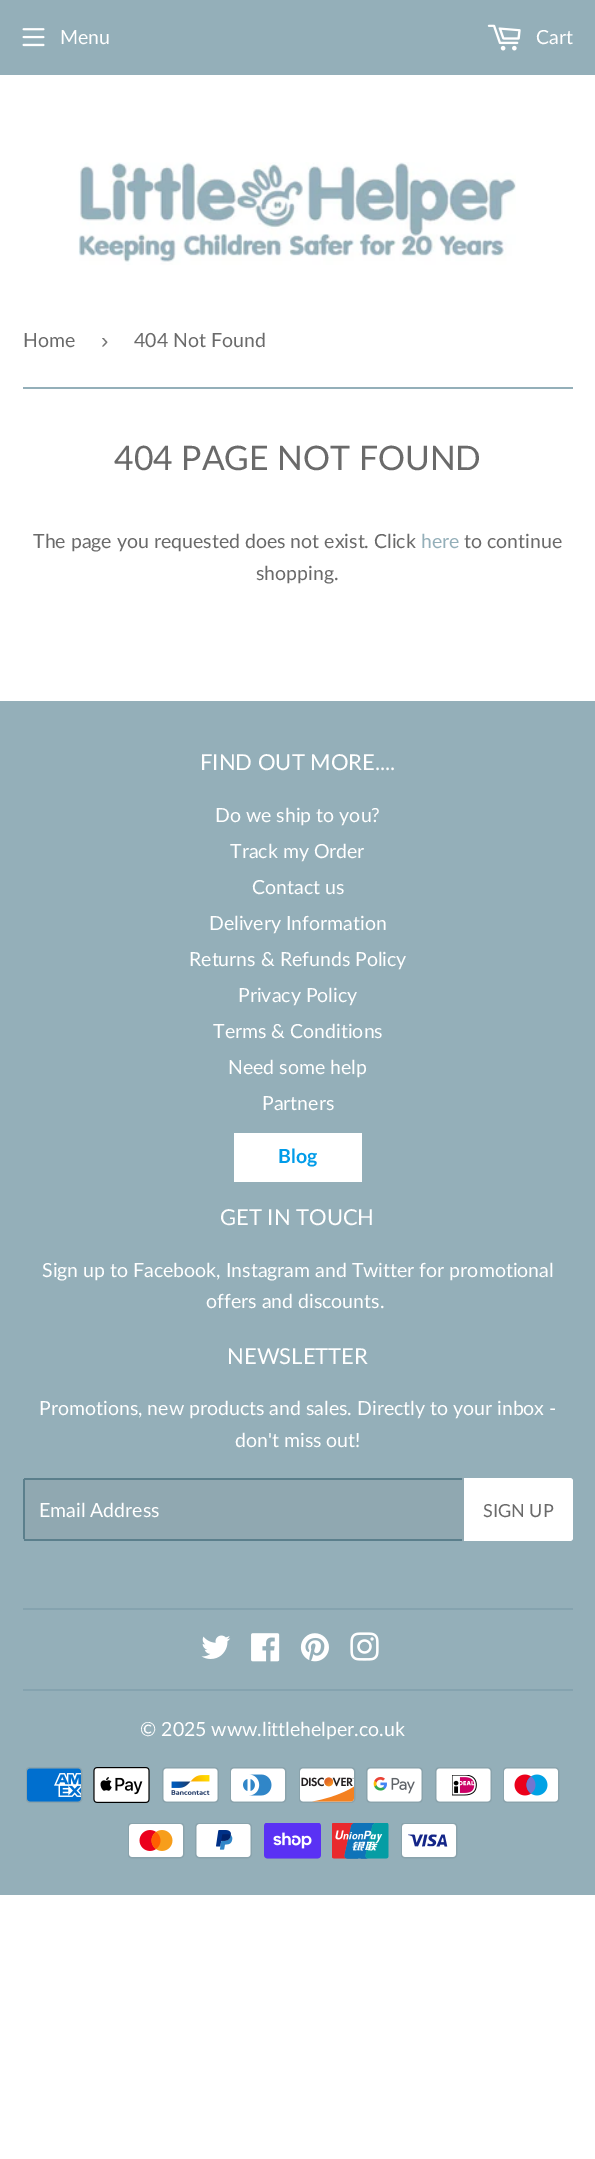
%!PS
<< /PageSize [595 2159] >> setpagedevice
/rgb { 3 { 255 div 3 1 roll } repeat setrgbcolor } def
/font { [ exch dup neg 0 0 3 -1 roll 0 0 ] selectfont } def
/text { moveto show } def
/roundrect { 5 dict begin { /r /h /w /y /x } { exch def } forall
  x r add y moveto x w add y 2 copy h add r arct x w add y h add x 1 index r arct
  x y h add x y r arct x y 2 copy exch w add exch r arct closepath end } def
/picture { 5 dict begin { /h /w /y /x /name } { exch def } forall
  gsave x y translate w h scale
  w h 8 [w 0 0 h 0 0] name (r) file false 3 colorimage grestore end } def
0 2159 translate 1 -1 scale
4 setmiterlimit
255 255 255 rgb
0 0 595 2159 rectfill
148 175 185 rgb
0 0 595 75 rectfill
(img_01.rgb) 22 28 23 19 picture
(img_02.rgb) 487 24 34 27 picture
(img_03.rgb) 78 162 438 103 picture
23 387 550 2 rectfill
0 701 595 1194 rectfill
255 255 255 rgb
234 1133 128 49 rectfill
144 168 177 rgb
23 1478 441 63 3 roundrect fill
91 127 140 rgb
24 1478 438 2 rectfill
24 1539 438 2 rectfill
23 1479 2 60 rectfill
255 255 255 rgb
464 1478 moveto 106 0 rlineto 1.5 0 3 1.5 3 3 rcurveto 0 57 rlineto 0 1.5 -1.5 3 -3 3 rcurveto -106 0 rlineto closepath fill
133 163 175 rgb
23 1608 550 2 rectfill
(img_04.rgb) 201 1635 30 24 picture
(img_05.rgb) 251 1633 29 29 picture
(img_06.rgb) 300 1633 29 29 picture
(img_07.rgb) 350 1632 29 29 picture
23 1689 550 2 rectfill
(img_08.rgb) 26 1767 57 36 picture
(img_09.rgb) 93 1767 57 36 picture
(img_10.rgb) 162 1767 57 36 picture
(img_11.rgb) 230 1767 57 36 picture
(img_12.rgb) 299 1767 57 36 picture
(img_13.rgb) 366 1767 57 36 picture
(img_14.rgb) 435 1767 57 36 picture
(img_15.rgb) 503 1767 57 36 picture
(img_16.rgb) 128 1823 57 36 picture
(img_17.rgb) 195 1823 57 36 picture
(img_18.rgb) 264 1823 57 36 picture
(img_19.rgb) 332 1823 57 36 picture
(img_20.rgb) 401 1823 57 36 picture
/Lato-Regular 19.5 font
255 255 255 rgb
(Menu) 60 44 text
(Cart) 536 44 text
106 106 106 rgb
(Home) 23 347 text
/LiberationSans-Regular 22 font
118 118 118 rgb
(›) 101 348 text
/Lato-Regular 19.5 font
106 106 106 rgb
(404 Not Found) 134 347 text
/Lato-Regular 33.75 font
(404 PAGE NOT FOUND) 114 470 text
/Lato-Regular 19.5 font
(The page you requested does not exist. Click) 33 548 text
148 175 185 rgb
(here) 421 548 text
106 106 106 rgb
(to continue) 464 548 text
(shopping.) 256 580 text
/Lato-Regular 22 font
255 255 255 rgb
(FIND OUT MORE....) 200 770 text
/Lato-Regular 19.5 font
(Do we ship to you?) 215 822 text
(Track my Order) 230 858 text
(Contact us) 252 894 text
(Delivery Information) 209 930 text
(Returns & Refunds Policy) 189 966 text
(Privacy Policy) 238 1002 text
(Terms & Conditions) 213 1038 text
(Need some help) 228 1074 text
(Partners) 262 1110 text
/Lato-Bold 19.5 font
1 156 233 rgb
(Blog) 278 1163 text
/Lato-Regular 22 font
255 255 255 rgb
(GET IN TOUCH) 220 1225 text
/Lato-Regular 19.5 font
(Sign up to Facebook, Instagram and Twitter for promotional) 42 1277 text
(offers and discounts.) 206 1308 text
/Lato-Regular 22 font
(NEWSLETTER) 227 1364 text
/Lato-Regular 19.5 font
(Promotions, new products and sales. Directly to your inbox -) 39 1415 text
(don't miss out!) 235 1447 text
(Email Address) 39 1517 text
/Lato-Regular 18 font
106 106 106 rgb
(SIGN UP) 483 1517 text
/Lato-Regular 19.5 font
255 255 255 rgb
(© 2025 www.littlehelper.co.uk) 140 1736 text
showpage
